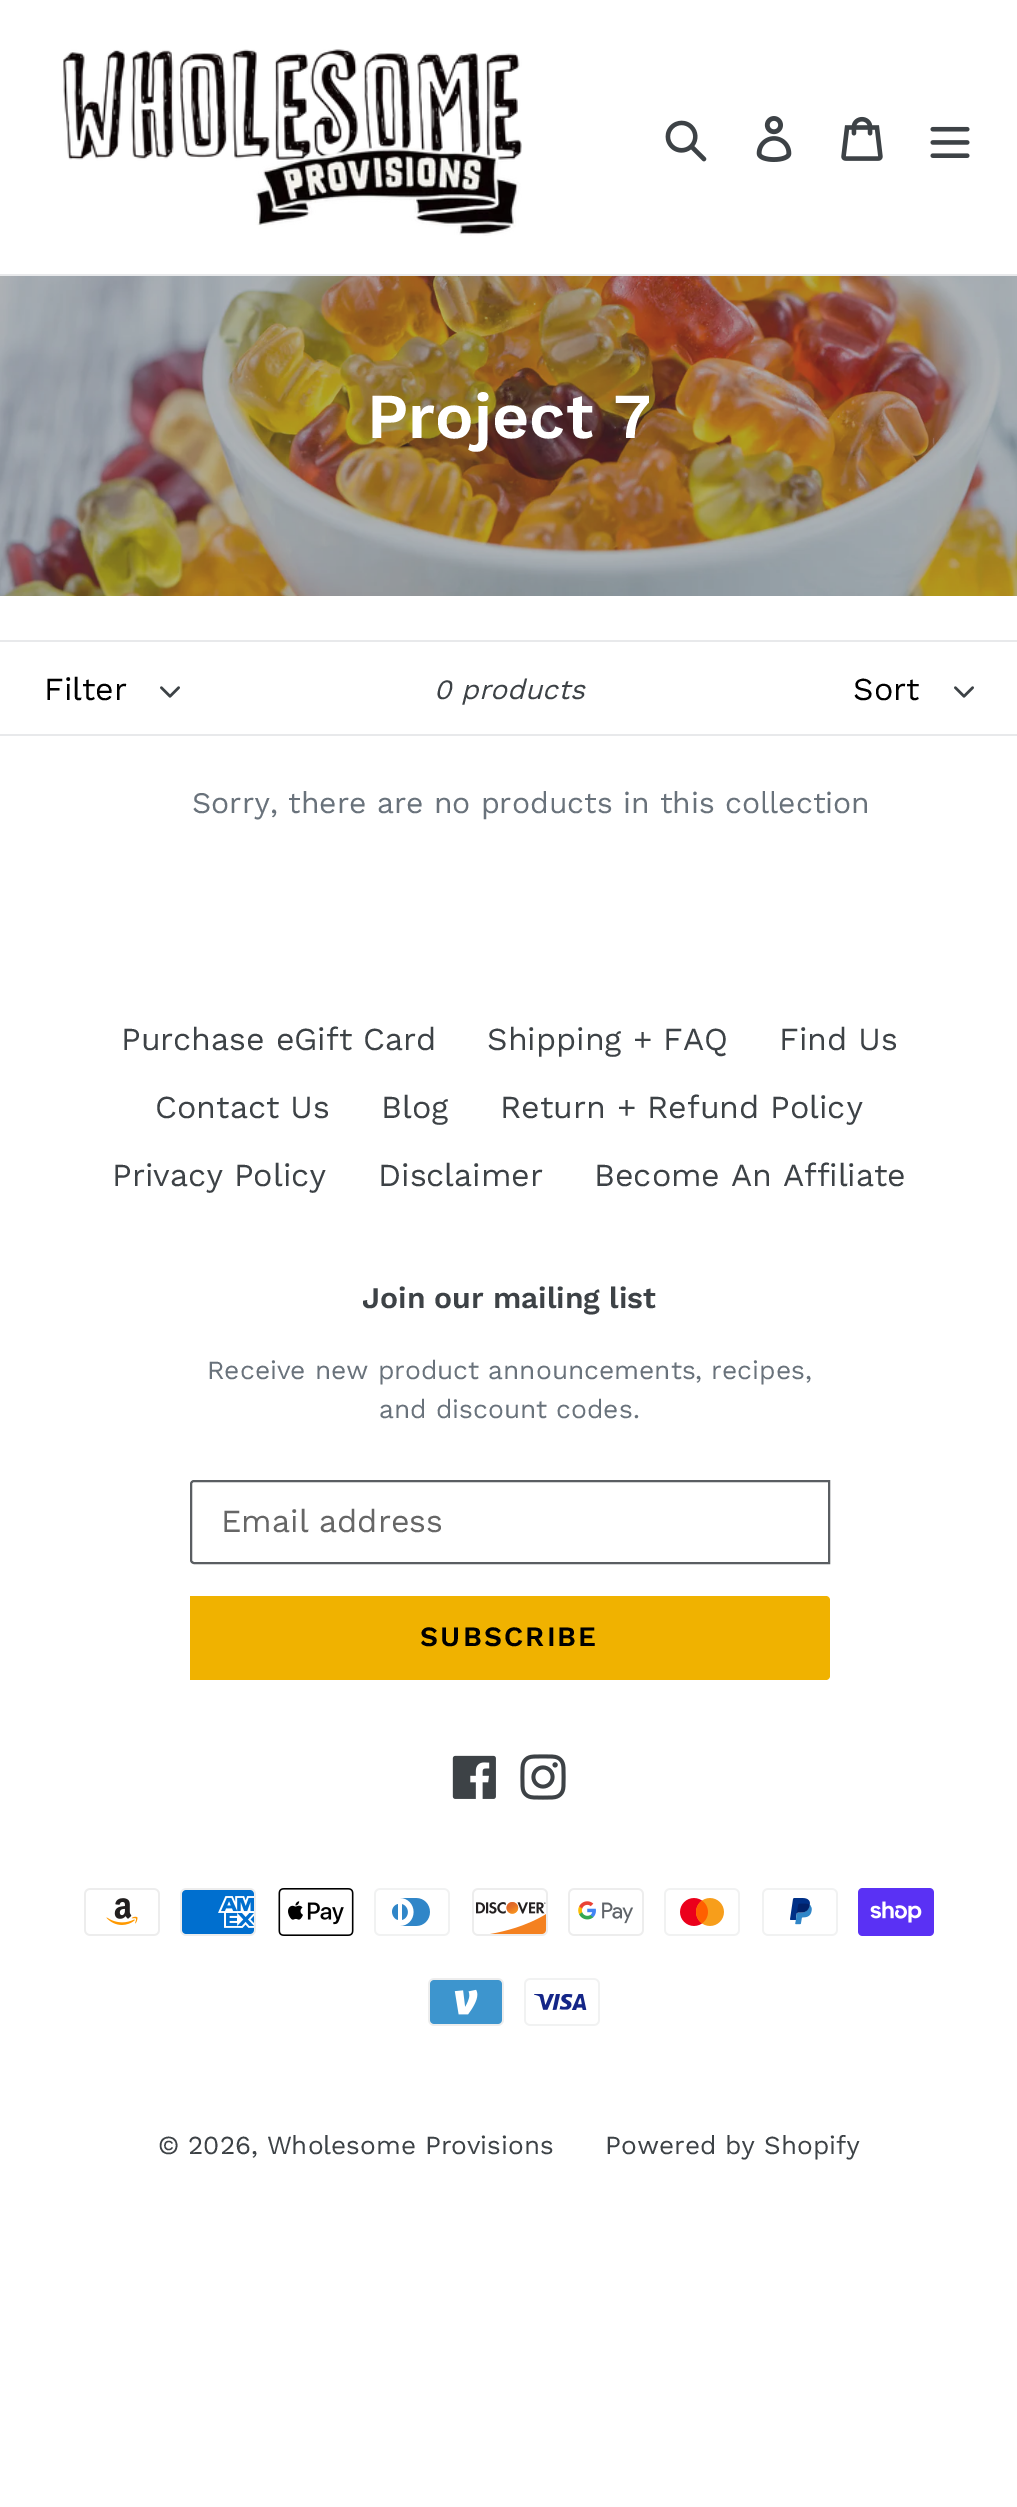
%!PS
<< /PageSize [1017 2507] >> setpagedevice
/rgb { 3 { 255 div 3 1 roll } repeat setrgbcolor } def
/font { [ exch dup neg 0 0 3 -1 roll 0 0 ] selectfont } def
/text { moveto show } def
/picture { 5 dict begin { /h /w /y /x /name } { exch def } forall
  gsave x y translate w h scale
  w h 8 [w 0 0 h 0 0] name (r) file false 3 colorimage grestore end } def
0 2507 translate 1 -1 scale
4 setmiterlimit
255 255 255 rgb
0 0 1017 2507 rectfill
232 233 235 rgb
0 274 1017 2 rectfill
(img_01.rgb) 63 49 459 187 picture
(img_02.rgb) 665 120 42 42 picture
(img_03.rgb) 756 116 36 46 picture
(img_04.rgb) 841 116 42 45 picture
(img_05.rgb) 930 126 40 32 picture
(img_06.rgb) 0 276 1017 320 picture
0 640 1017 2 rectfill
0 734 1017 2 rectfill
(img_07.rgb) 160 686 20 12 picture
(img_07.rgb) 954 686 20 12 picture
90 94 98 rgb
2 setlinewidth
194 1481 moveto 635 0 rlineto 0 82 rlineto -635 0 rlineto -1.5 0 -3 -1.5 -3 -3 rcurveto 0 -76 rlineto 0 -1.5 1.5 -3 3 -3 rcurveto closepath stroke
240 178 0 rgb
190 1596 moveto 636 0 rlineto 2 0 4 2 4 4 rcurveto 0 76 rlineto 0 2 -2 4 -4 4 rcurveto -636 0 rlineto closepath fill
(img_08.rgb) 452 1755 44 44 picture
(img_09.rgb) 520 1754 46 46 picture
(img_10.rgb) 84 1888 76 48 picture
(img_11.rgb) 180 1888 76 48 picture
(img_12.rgb) 278 1888 76 48 picture
(img_13.rgb) 374 1888 76 48 picture
(img_14.rgb) 472 1888 76 48 picture
(img_15.rgb) 568 1888 76 48 picture
(img_16.rgb) 664 1888 76 48 picture
(img_17.rgb) 762 1888 76 48 picture
(img_18.rgb) 858 1888 76 48 picture
(img_19.rgb) 428 1978 76 48 picture
(img_20.rgb) 524 1978 76 48 picture
/WorkSans-SemiBold 64 font
255 255 255 rgb
(Project 7) 367 438 text
/WorkSans-Regular 32 font
0 0 0 rgb
(Filter) 44 700 text
/WorkSans-Italic 28 font
61 66 70 rgb
(0 products) 434 699 text
/WorkSans-Regular 32 font
0 0 0 rgb
(Sort) 853 700 text
/WorkSans-Regular 30 font
105 114 123 rgb
(Sorry, there are no products in this collection) 192 813 text
/WorkSans-Regular 32 font
61 66 70 rgb
(Purchase eGift Card) 121 1050 text
(Shipping + FAQ) 487 1050 text
(Find Us) 779 1050 text
(Contact Us) 155 1118 text
(Blog) 381 1118 text
(Return + Refund Policy) 500 1118 text
(Privacy Policy) 112 1186 text
(Disclaimer) 378 1186 text
(Become An Affiliate) 594 1186 text
/WorkSans-SemiBold 30 font
(Join our mailing list) 362 1308 text
/WorkSans-Regular 26.25 font
105 114 123 rgb
(Receive new product announcements, recipes,) 207 1379 text
(and discount codes.) 379 1418 text
/WorkSans-Regular 32 font
102 102 102 rgb
(Email address) 221 1532 text
/WorkSans-SemiBold 28 font
0 0 0 rgb
420 1646 moveto 2.25 0 (SUBSCRIBE) ashow
/WorkSans-Regular 26 font
61 66 70 rgb
(© 2026, Wholesome Provisions) 158 2154 text
(Powered by Shopify) 605 2154 text
showpage
